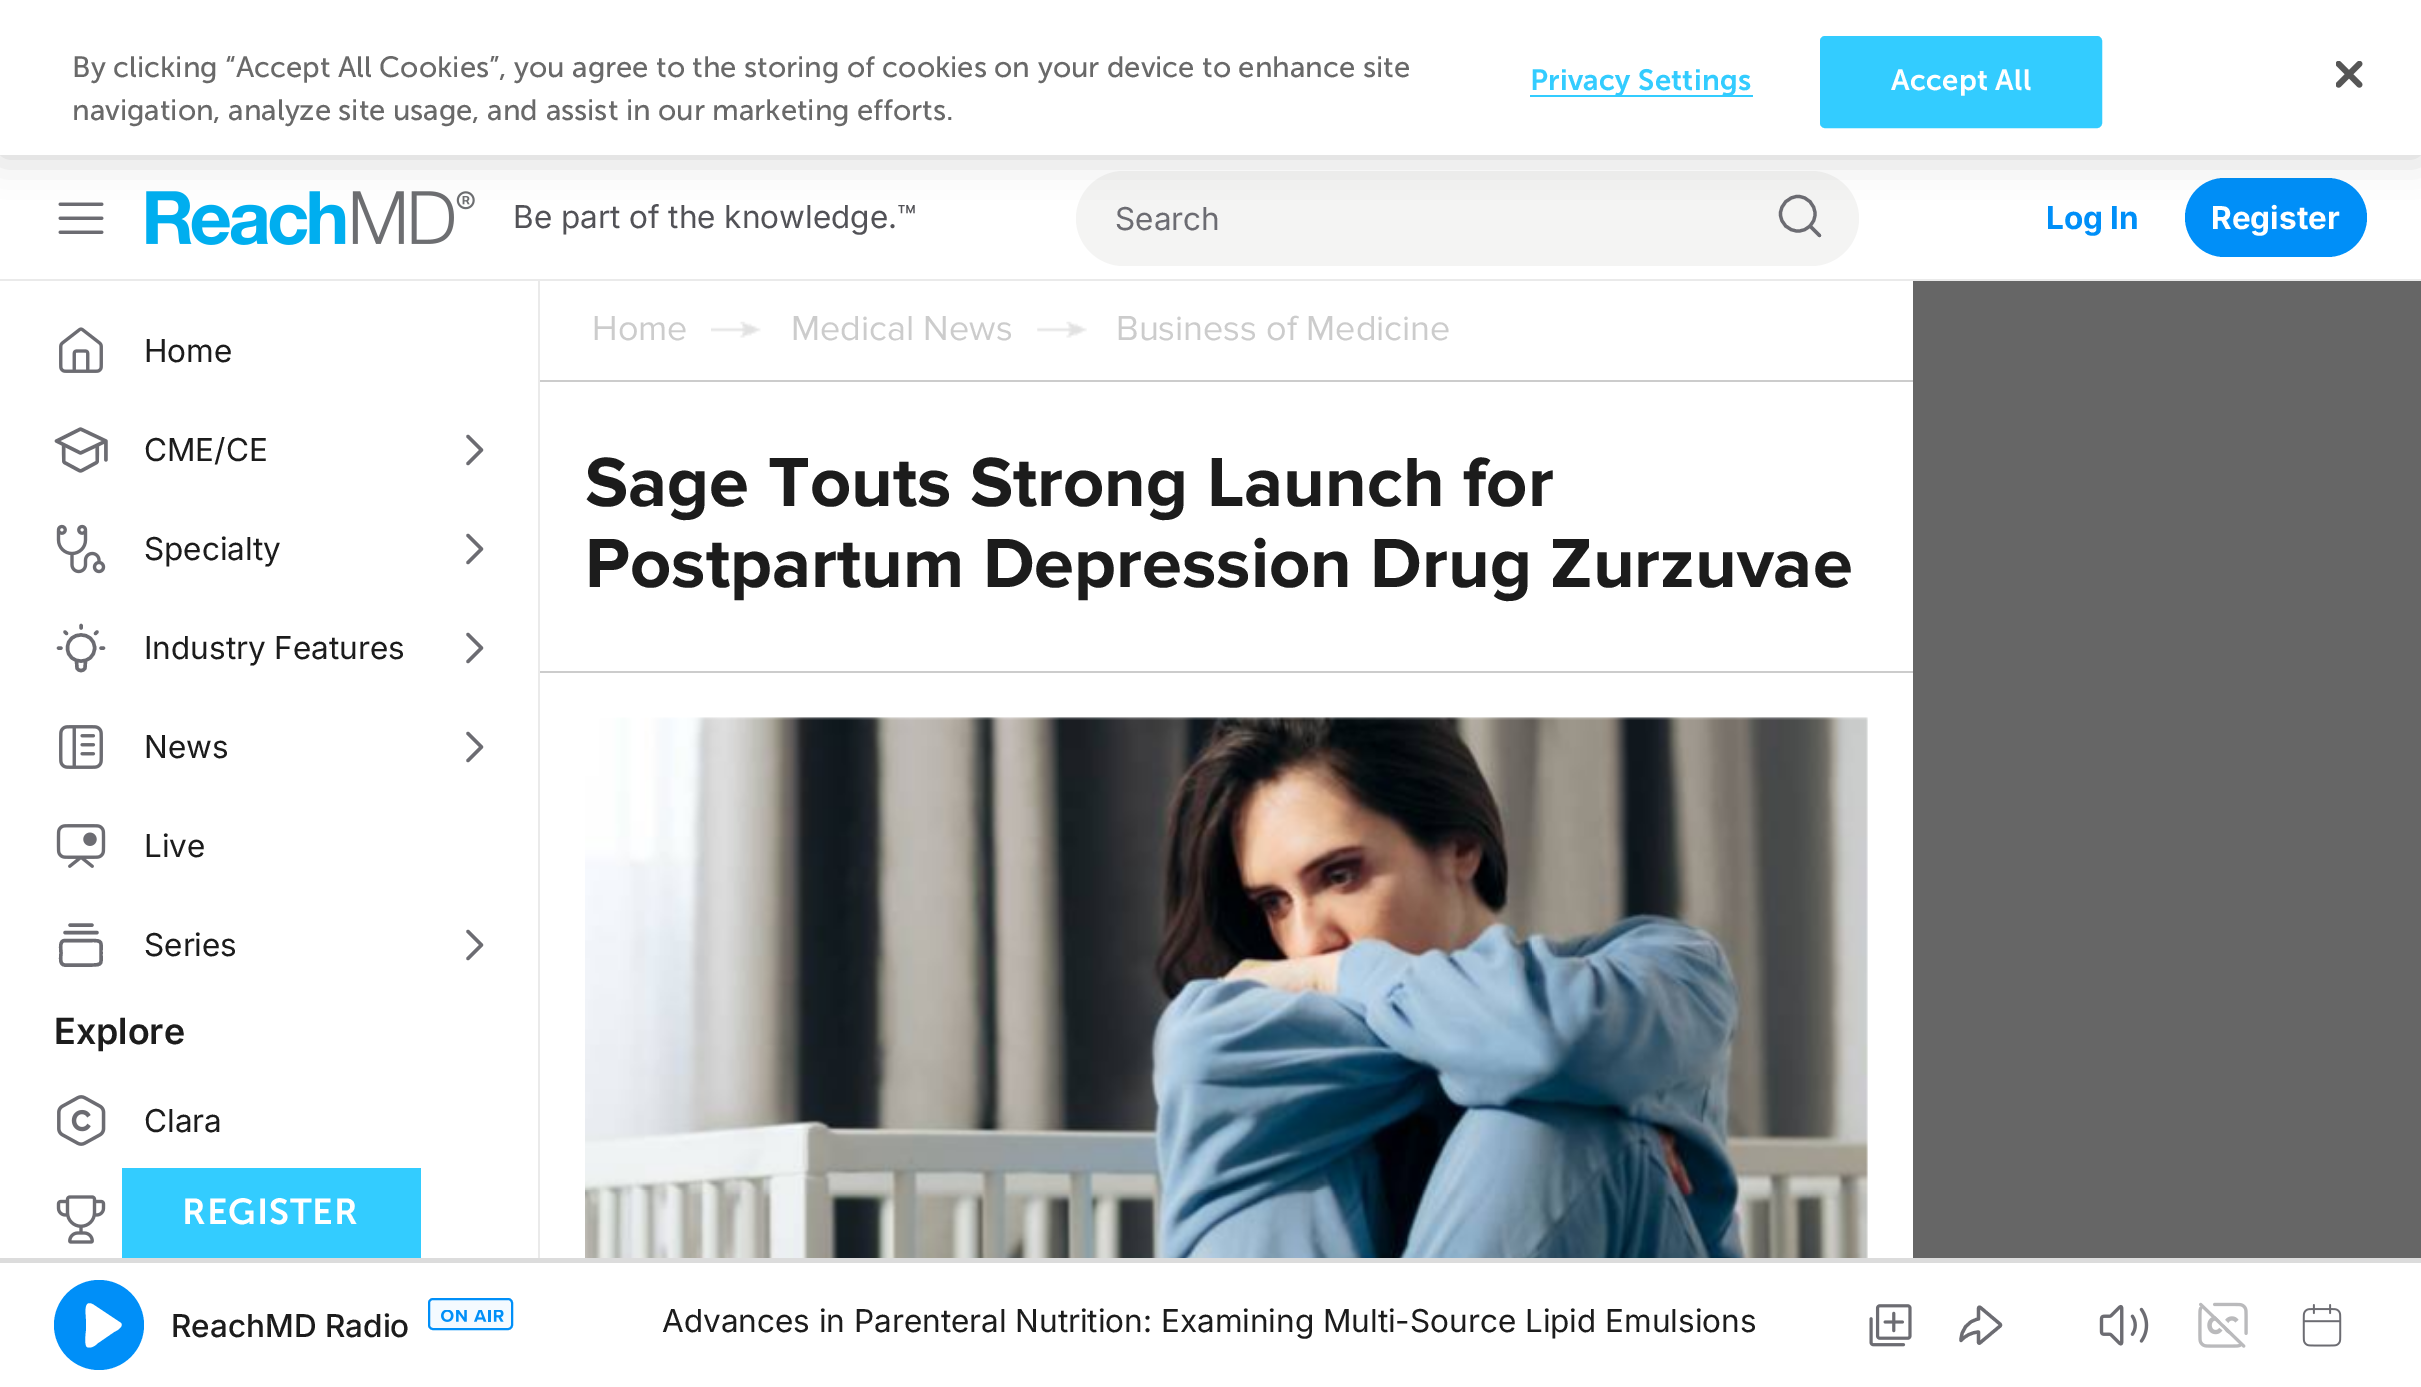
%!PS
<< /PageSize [2421 1387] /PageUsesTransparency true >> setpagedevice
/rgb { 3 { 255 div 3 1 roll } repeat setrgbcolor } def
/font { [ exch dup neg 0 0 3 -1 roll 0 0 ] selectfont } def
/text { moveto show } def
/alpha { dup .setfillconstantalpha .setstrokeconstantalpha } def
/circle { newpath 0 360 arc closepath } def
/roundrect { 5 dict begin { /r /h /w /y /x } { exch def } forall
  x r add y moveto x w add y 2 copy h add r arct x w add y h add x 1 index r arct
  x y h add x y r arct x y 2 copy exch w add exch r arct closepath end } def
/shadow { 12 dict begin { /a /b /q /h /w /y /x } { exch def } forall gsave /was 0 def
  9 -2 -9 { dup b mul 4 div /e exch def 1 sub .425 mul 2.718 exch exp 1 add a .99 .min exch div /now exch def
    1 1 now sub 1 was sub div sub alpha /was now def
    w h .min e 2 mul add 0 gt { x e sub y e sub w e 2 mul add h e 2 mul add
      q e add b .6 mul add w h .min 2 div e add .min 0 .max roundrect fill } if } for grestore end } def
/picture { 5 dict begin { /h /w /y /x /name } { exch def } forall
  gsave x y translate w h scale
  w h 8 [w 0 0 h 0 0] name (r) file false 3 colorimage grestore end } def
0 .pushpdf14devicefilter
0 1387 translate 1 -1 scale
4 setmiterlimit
102 102 102 rgb
0 0 2421 1387 rectfill
255 255 255 rgb
0 155 2421 124 rectfill
(img_02.rgb) 58 202 46 32 picture
(img_03.rgb) 146 191 329 54 picture
244 244 243 rgb
1123.5 171 moveto 627.5 0 rlineto 0 95 rlineto -627.5 0 rlineto -26 0 -47.5 -21.5 -47.5 -47.5 rcurveto 0 -26 21.5 -47.5 47.5 -47.5 rcurveto closepath fill
1751 171 moveto 60.5 0 rlineto 26 0 47.5 21.5 47.5 47.5 rcurveto 0 26 -21.5 47.5 -47.5 47.5 rcurveto -60.5 0 rlineto closepath fill
108 108 114 rgb
3.2 setlinewidth
1 setlinecap
1 setlinejoin
1798 231 moveto 9.5 0 17 -7.5 17 -17 rcurveto 0 -9.5 -7.5 -17.5 -17 -17.5 rcurveto -9.5 0 -17.5 8 -17.5 17.5 rcurveto 0 9.5 8 17 17.5 17 rcurveto closepath 1819.5 235.5 moveto -9.5 -9.5 rlineto stroke
0 143 248 rgb
2185 178 182 79 39.5 roundrect fill
0 0 0 rgb
0 0 2421 155 0 20 0.2 shadow
255 255 255 rgb
0 0 2421 155 rectfill
51 204 255 rgb
1530 95 223 2 rectfill
1821 37 280 90 4 roundrect gsave fill grestore
2 setlinewidth
0 setlinecap
0 setlinejoin
stroke
(img_01.rgb) 2336 61 27 27 picture
234 234 234 rgb
538 279 2 979 rectfill
0 279 2421 2 rectfill
255 255 255 rgb
0 281 538 977 rectfill
(img_04.rgb) 59 327 44 46 picture
(img_05.rgb) 54 427 54 46 picture
108 108 114 rgb
3.4 setlinewidth
1 setlinecap
1 setlinejoin
468 463.5 moveto 13.5 -13.5 rlineto -13.5 -13.5 rlineto stroke
(img_06.rgb) 56 524 50 50 picture
468 562.5 moveto 13.5 -13.5 rlineto -13.5 -13.5 rlineto stroke
76.5 660.5 moveto 0.5 7.5 rlineto 1.5 3.5 6.5 3.5 8 0 rcurveto 0.5 -7.5 rlineto 81 625.5 moveto 0 2.5 rlineto 61 648 moveto -2.5 0 rlineto 66.5 633.5 moveto -1.5 -1.5 rlineto 95.5 633.5 moveto 1.5 -1.5 rlineto 103.5 648 moveto -2.5 0 rlineto 94.5 648 moveto 0 17.5 -27 17.5 -27 0 rcurveto 0 -17.5 27 -17.5 27 0 rcurveto closepath stroke
468 661.5 moveto 13.5 -13.5 rlineto -13.5 -13.5 rlineto stroke
(img_07.rgb) 59 725 44 44 picture
468 760.5 moveto 13.5 -13.5 rlineto -13.5 -13.5 rlineto stroke
(img_08.rgb) 56 824 50 44 picture
0 setlinejoin
65 932.5 moveto 32 0 rlineto 70 925 moveto 22 0 rlineto 65 965 moveto 26.5 0 rlineto 11.5 0 9.5 -1.5 9.5 -12 rcurveto 0 -11 2 -12.5 -9.5 -12.5 rcurveto -26.5 0 rlineto -6 0 -4 8.5 -4 12.5 rcurveto 0 3.5 -2 12 4 12 rcurveto closepath stroke
1 setlinejoin
468 958.5 moveto 13.5 -13.5 rlineto -13.5 -13.5 rlineto stroke
(img_09.rgb) 57 1095 49 51 picture
(img_10.rgb) 56 1195 50 49 picture
255 255 255 rgb
540 281 1373 977 rectfill
204 204 204 rgb
540 380 1373 2 rectfill
(img_11.rgb) 711 321 50 17 picture
(img_12.rgb) 1037 321 50 17 picture
540 671 1373 2 rectfill
(img_13.rgb) 585 717 1283 541 picture
51 204 255 rgb
122 1168 299 90 rectfill
255 255 255 rgb
0 1263 2421 124 rectfill
220 220 220 rgb
0 1258 2421 5 rectfill
0 143 248 rgb
99 1325 45 circle fill
255 255 255 rgb
94 1305 moveto 27 18 rlineto 3 4 -5 8 -7 9 rcurveto -16 11 rlineto -2 2 -7 6 -11 4 rcurveto -3 -2 -1 -15 -1 -16 rcurveto 0 -12 rlineto 0 -5 -3 -21 8 -14 rcurveto closepath eofill
244 250 255 rgb
429 1299 83 30 4 roundrect gsave fill grestore
0 143 248 rgb
2 setlinewidth
0 setlinecap
0 setlinejoin
stroke
(img_14.rgb) 441 1310 63 12 picture
(img_15.rgb) 1869 1304 43 43 picture
108 108 114 rgb
3.2 setlinewidth
1 setlinecap
1 setlinejoin
1999.5 1326.5 moveto 1 -0.5 1.5 -1.5 0.5 -2.5 rcurveto -19 -16 rlineto -3 -2.5 -2.5 1 -2.5 3 rcurveto 0 8 rlineto -11 2 -17.5 11 -17.5 21.5 rcurveto 4.5 -5 10.5 -8 17.5 -8.5 rcurveto 0 7.5 rlineto 0 2.5 -0.5 5.5 2.5 2.5 rcurveto closepath stroke
(img_16.rgb) 2099 1304 50 42 picture
(img_17.rgb) 2198 1302 50 46 picture
(img_18.rgb) 2302 1304 40 43 picture
/MuseoSans-Regular 29.25 font
105 105 105 rgb
(By clicking “Accept All Cookies”, you agree to the storing of cookies on your device to enhance site) 72 77 text
(navigation, analyze site usage, and assist in our marketing efforts.) 72 120 text
/MuseoSans-SemiBold 29.25 font
51 204 255 rgb
1530 90 moveto 0.25 0 (Privacy Settings) ashow
255 255 255 rgb
1891 90 moveto 0.25 0 (Accept All) ashow
/Inter-Regular 31.5 font
82 82 87 rgb
(Be part of the knowledge.™) 513 228 text
108 108 114 rgb
(Search) 1115 230 text
/Inter-Bold 31.5 font
0 143 248 rgb
(Log In) 2046 229 text
255 255 255 rgb
(Register) 2211 229 text
/Inter-Regular 31.5 font
28 28 28 rgb
(Home) 144 362 text
(CME/CE) 144 461 text
(Specialty) 144 560 text
(Industry Features) 144 659 text
(News) 144 758 text
(Live) 144 857 text
(Series) 144 956 text
/Inter-SemiBold 36 font
(Explore) 54 1044 text
/Inter-Regular 31.5 font
(Clara) 144 1132 text
/ProximaNova-Regular 36 font
204 204 204 rgb
(Home) 592 340 text
(Medical News) 791 340 text
(Business of Medicine) 1116 340 text
/ProximaNova-Bold 72 font
28 28 28 rgb
(Sage Touts Strong Launch for) 585 506 text
(Postpartum Depression Drug Zurzuvae) 585 587 text
/MuseoSans-SemiBold 36 font
255 255 255 rgb
182 1224 moveto 1 0 (REGISTER) ashow
/Inter-Medium 31.5 font
28 28 28 rgb
(ReachMD Radio) 171 1337 text
/Inter-Regular 31.5 font
(Advances in Parenteral Nutrition: Examining Multi-Source Lipid Emulsions) 662 1332 text
.poppdf14devicefilter showpage
